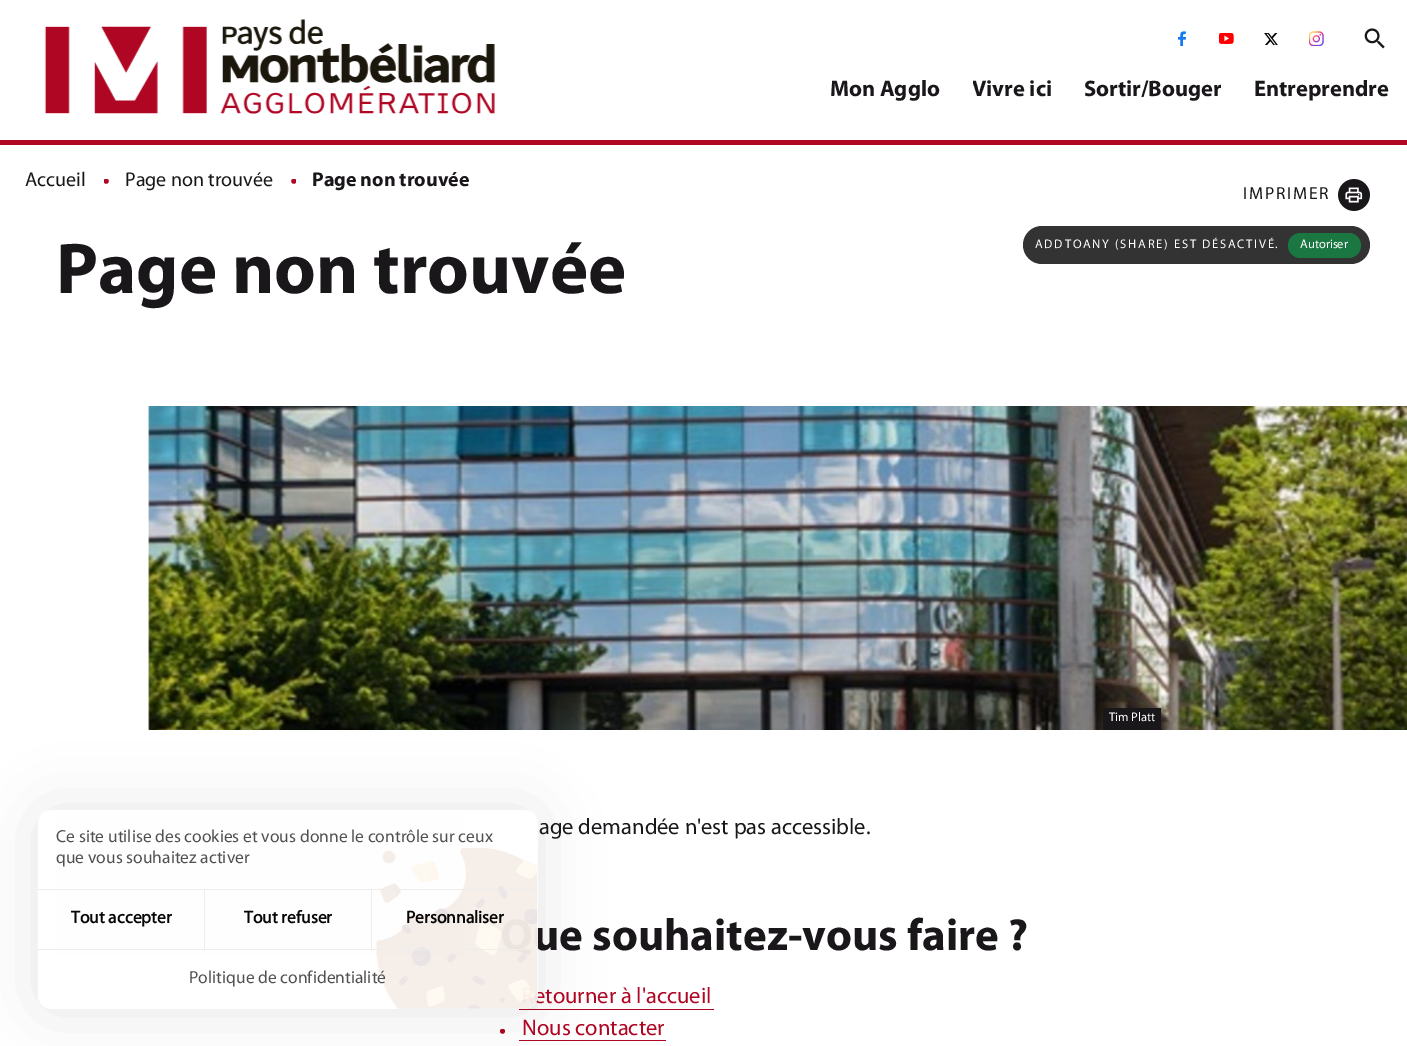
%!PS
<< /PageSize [1407 1046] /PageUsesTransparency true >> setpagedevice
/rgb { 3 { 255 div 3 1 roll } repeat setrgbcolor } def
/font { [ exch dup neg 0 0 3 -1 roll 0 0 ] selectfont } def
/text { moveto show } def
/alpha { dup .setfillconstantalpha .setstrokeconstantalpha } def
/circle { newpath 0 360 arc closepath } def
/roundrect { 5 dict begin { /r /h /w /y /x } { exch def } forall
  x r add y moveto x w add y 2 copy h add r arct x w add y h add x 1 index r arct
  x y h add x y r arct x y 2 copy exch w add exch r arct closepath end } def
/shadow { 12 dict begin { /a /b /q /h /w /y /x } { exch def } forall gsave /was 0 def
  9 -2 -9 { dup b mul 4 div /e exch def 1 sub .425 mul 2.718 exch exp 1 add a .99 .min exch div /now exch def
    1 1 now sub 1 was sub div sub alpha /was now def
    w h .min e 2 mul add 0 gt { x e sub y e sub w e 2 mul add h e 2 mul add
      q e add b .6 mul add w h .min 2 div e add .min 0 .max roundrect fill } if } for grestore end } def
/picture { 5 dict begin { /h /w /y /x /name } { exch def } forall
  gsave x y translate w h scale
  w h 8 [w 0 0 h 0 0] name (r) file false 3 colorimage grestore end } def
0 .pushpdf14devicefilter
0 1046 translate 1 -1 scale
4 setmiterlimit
255 255 255 rgb
0 0 1407 1046 rectfill
175 6 35 rgb
0 140 1407 5 rectfill
(img_01.rgb) 44 19 451 95 picture
(img_02.rgb) 1178 31 8 15 picture
(img_03.rgb) 1219 33 15 11 picture
(img_04.rgb) 1264 33 14 12 picture
(img_05.rgb) 1309 31 15 15 picture
(img_06.rgb) 1364 28 21 21 picture
gsave
104 179 5 5 rectclip
106.2 181.2 2.5 circle fill
grestore
gsave
291 179 5 5 rectclip
293.8 181.2 2.5 circle fill
grestore
(img_07.rgb) 1338 179 32 32 picture
51 51 51 rgb
1023 226 347 38 19 roundrect fill
27 119 66 rgb
1288 233 73 25 12.5 roundrect fill
(img_08.rgb) 148 406 1259 324 picture
26 23 27 rgb
1103 708 58 22 rectfill
237 237 237 rgb
56 814 407 142 rectfill
gsave
500 998 5 5 rectclip
175 6 35 rgb
502.5 1000 2.5 circle fill
grestore
175 6 35 rgb
519 1009 195 1 rectfill
gsave
500 1029 5 5 rectclip
502.5 1031.2 2.5 circle fill
grestore
519 1040 147 1 rectfill
gsave
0 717 moveto 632 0 rlineto 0 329 rlineto -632 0 rlineto closepath 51 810 moveto 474 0 rlineto 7 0 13 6 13 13 rcurveto 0 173 rlineto 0 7 -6 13 -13 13 rcurveto -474 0 rlineto -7 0 -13 -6 -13 -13 rcurveto 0 -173 rlineto 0 -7 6 -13 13 -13 rcurveto closepath eoclip newpath
0 0 0 rgb
38 811 500 199 13 31 0.1 shadow
grestore
/Myriad-Bold 22.5 font
26 23 27 rgb
(Mon Agglo) 830 96 text
gsave
973 80 80 60 rectclip
(Vivre ici) 972 96 text
grestore
gsave
1084 80 137 60 rectclip
(Sortir/Bouger) 1084 96 text
grestore
(Entreprendre) 1254 96 text
/Myriad-Regular 20 font
(Accueil) 25 186 text
(Page non trouvée) 125 186 text
/Myriad-Bold 20 font
(Page non trouvée) 312 186 text
/Myriad-Regular 17.5 font
1243 199 moveto 1.75 0 (IMPRIMER) ashow
/Myriad-Regular 12.5 font
255 255 255 rgb
1035 248 moveto 1.75 0 (ADDTOANY \(SHARE\) EST DÉSACTIVÉ.) ashow
(Autoriser) 1300 248 text
/Myriad-Bold 72.5 font
26 23 27 rgb
(Page non trouvée) 56 293 text
/Myriad-Regular 12.5 font
255 255 255 rgb
(Tim Platt) 1109 721 text
/Myriad-Regular 22.5 font
26 23 27 rgb
(age demandée n'est pas accessible.) 539 834 text
/Myriad-Bold 45 font
(ue souhaitez-vous faire ?) 533 950 text
/Myriad-Regular 22.5 font
175 6 35 rgb
(etourner à l'accueil) 534 1003 text
(Nous contacter) 522 1035 text
0.95 alpha
255 255 255 rgb
38 810 500 199 13 roundrect fill
/Myriad-Regular 17.5 font
1 alpha
80 80 80 rgb
(Ce site utilise des cookies et vous donne le contrôle sur ceux) 56 842 text
(que vous souhaitez activer) 56 863 text
237 237 237 rgb
204 890 1 59 rectfill
/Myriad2-Bold 17.5 font
7 6 6 rgb
(Tout refuser) 244 923 text
(img_09.rgb) 376 848 162 161 picture
237 237 237 rgb
38 889 500 1 rectfill
7 6 6 rgb
(Tout accepter) 71 923 text
237 237 237 rgb
371 890 1 59 rectfill
7 6 6 rgb
(Personnaliser) 406 923 text
237 237 237 rgb
38 949 500 1 rectfill
/Myriad-Regular 17.5 font
80 80 80 rgb
(Politique de confidentialité) 189 983 text
.poppdf14devicefilter showpage
